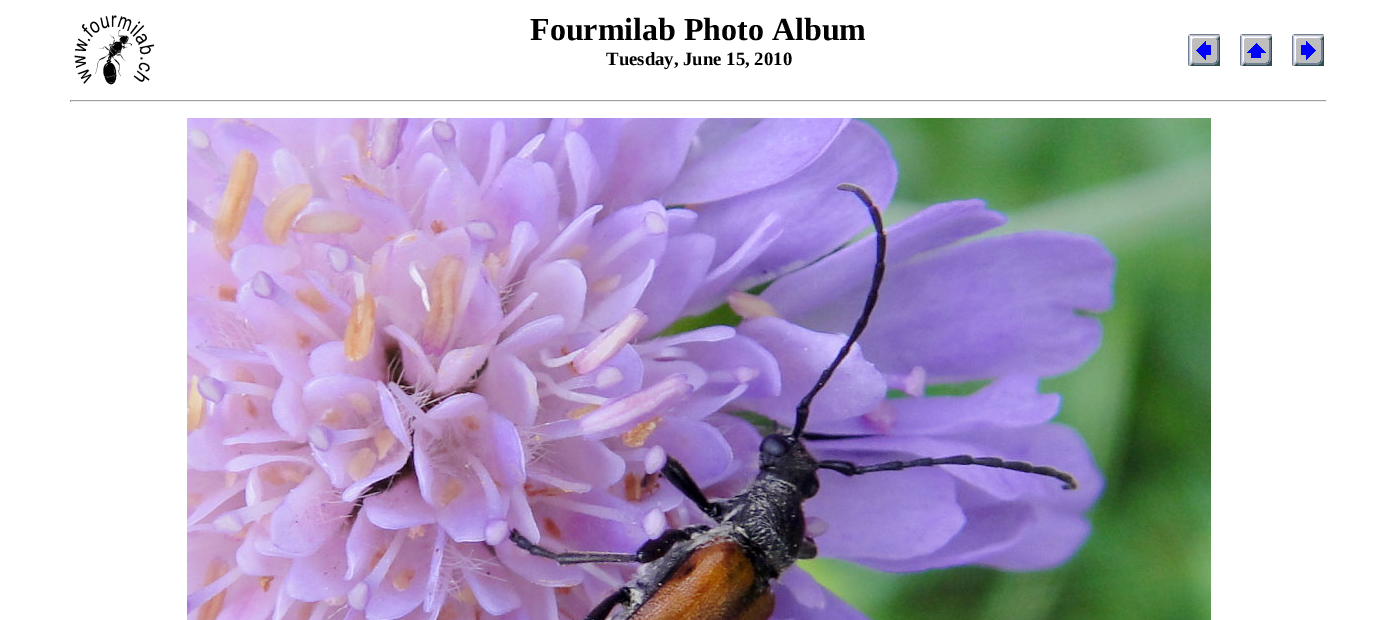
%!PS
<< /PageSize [1397 620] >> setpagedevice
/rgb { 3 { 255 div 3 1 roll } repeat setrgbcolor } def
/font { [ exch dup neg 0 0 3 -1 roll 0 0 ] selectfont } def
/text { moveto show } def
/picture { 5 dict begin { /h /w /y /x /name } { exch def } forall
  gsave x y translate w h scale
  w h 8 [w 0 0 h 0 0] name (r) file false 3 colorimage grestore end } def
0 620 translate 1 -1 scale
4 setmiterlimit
255 255 255 rgb
0 0 1397 620 rectfill
(img_01.rgb) 74 15 81 70 picture
(img_02.rgb) 1188 34 32 32 picture
(img_03.rgb) 1240 34 32 32 picture
(img_04.rgb) 1292 34 32 32 picture
159 159 159 rgb
70 100 1257 1 rectfill
238 238 238 rgb
1326 100 1 2 rectfill
70 101 1257 1 rectfill
159 159 159 rgb
70 100 1 2 rectfill
(img_05.rgb) 187 118 1024 502 picture
/LiberationSerif-Bold 32 font
0 0 0 rgb
(Fourmilab Photo Album) 530 40 text
/LiberationSerif-Bold 18.75 font
(Tuesday, June 15, 2010) 606 65 text
showpage
